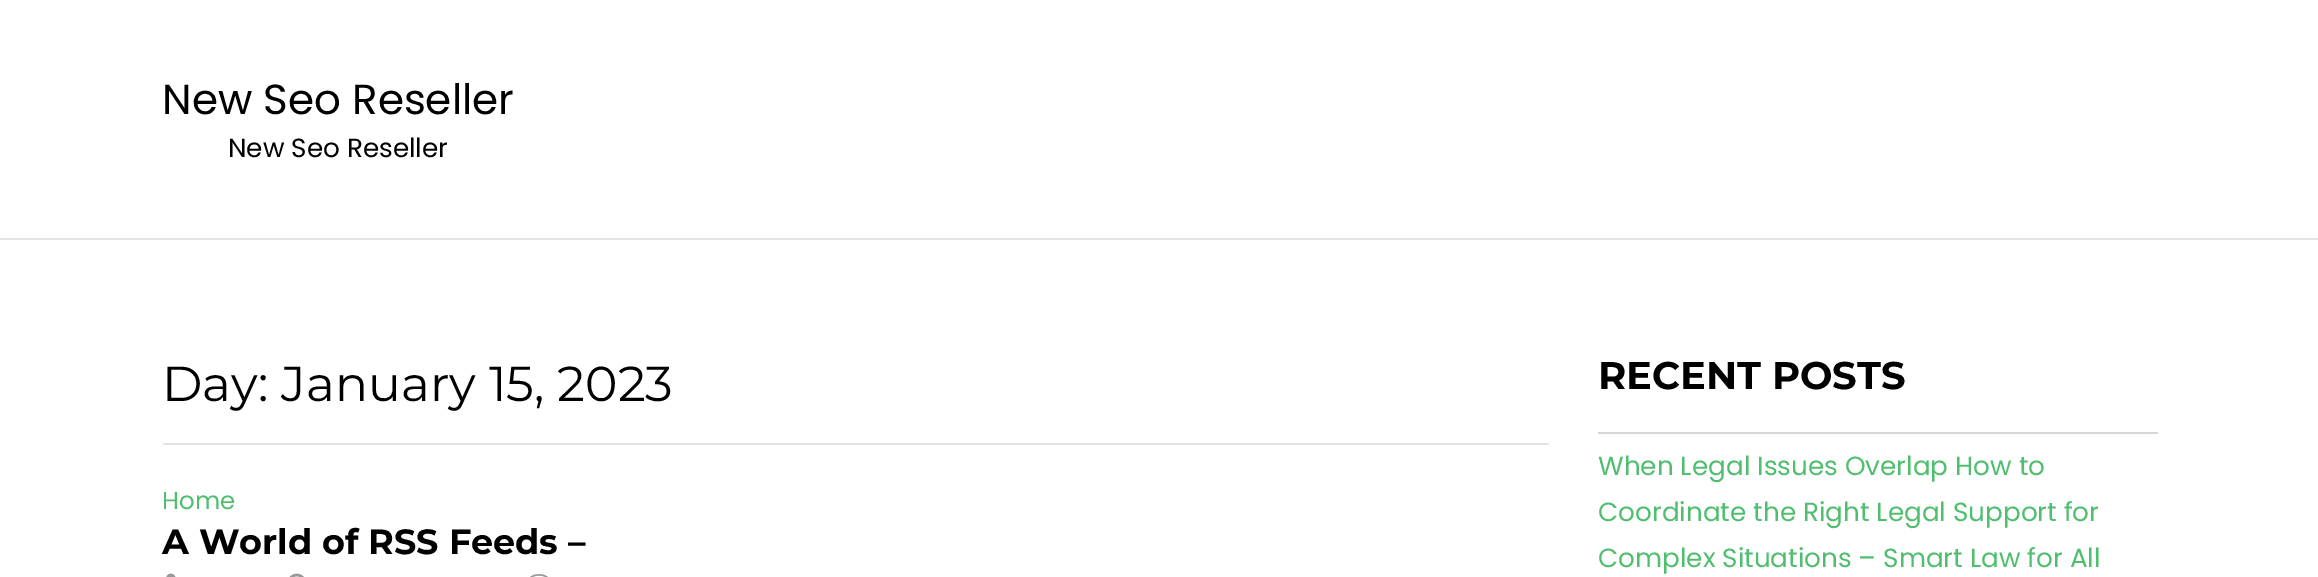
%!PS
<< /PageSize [2318 577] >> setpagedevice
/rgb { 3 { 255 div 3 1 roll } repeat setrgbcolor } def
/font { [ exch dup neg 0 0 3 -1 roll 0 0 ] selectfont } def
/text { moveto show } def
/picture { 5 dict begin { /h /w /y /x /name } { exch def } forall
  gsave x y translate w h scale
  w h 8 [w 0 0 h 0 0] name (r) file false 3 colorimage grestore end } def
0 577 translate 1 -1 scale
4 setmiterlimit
255 255 255 rgb
0 0 2318 577 rectfill
229 229 229 rgb
0 238 2318 2 rectfill
163 443 1386 2 rectfill
(img_01.rgb) 166 573 10 4 picture
(img_02.rgb) 289 573 15 4 picture
(img_03.rgb) 530 574 18 3 picture
215 215 215 rgb
1598 432 560 2 rectfill
/Poppins-Regular 42 font
0 0 0 rgb
(New Seo Reseller) 162 114 text
/Poppins-Regular 26.25 font
(New Seo Reseller) 228 157 text
/Montserrat-Regular 49 font
(Day: January 15, 2023) 162 401 text
/Poppins-Regular 24.5 font
79 190 110 rgb
(Home) 162 509 text
/Montserrat-Bold 35 font
0 0 0 rgb
(A World of RSS Feeds –) 162 554 text
/Montserrat-Bold 38.5 font
(RECENT POSTS) 1598 389 text
/Poppins-Regular 26.25 font
79 190 110 rgb
(When Legal Issues Overlap How to) 1598 475 text
(Coordinate the Right Legal Support for) 1598 521 text
(Complex Situations – Smart Law for All) 1598 567 text
showpage
